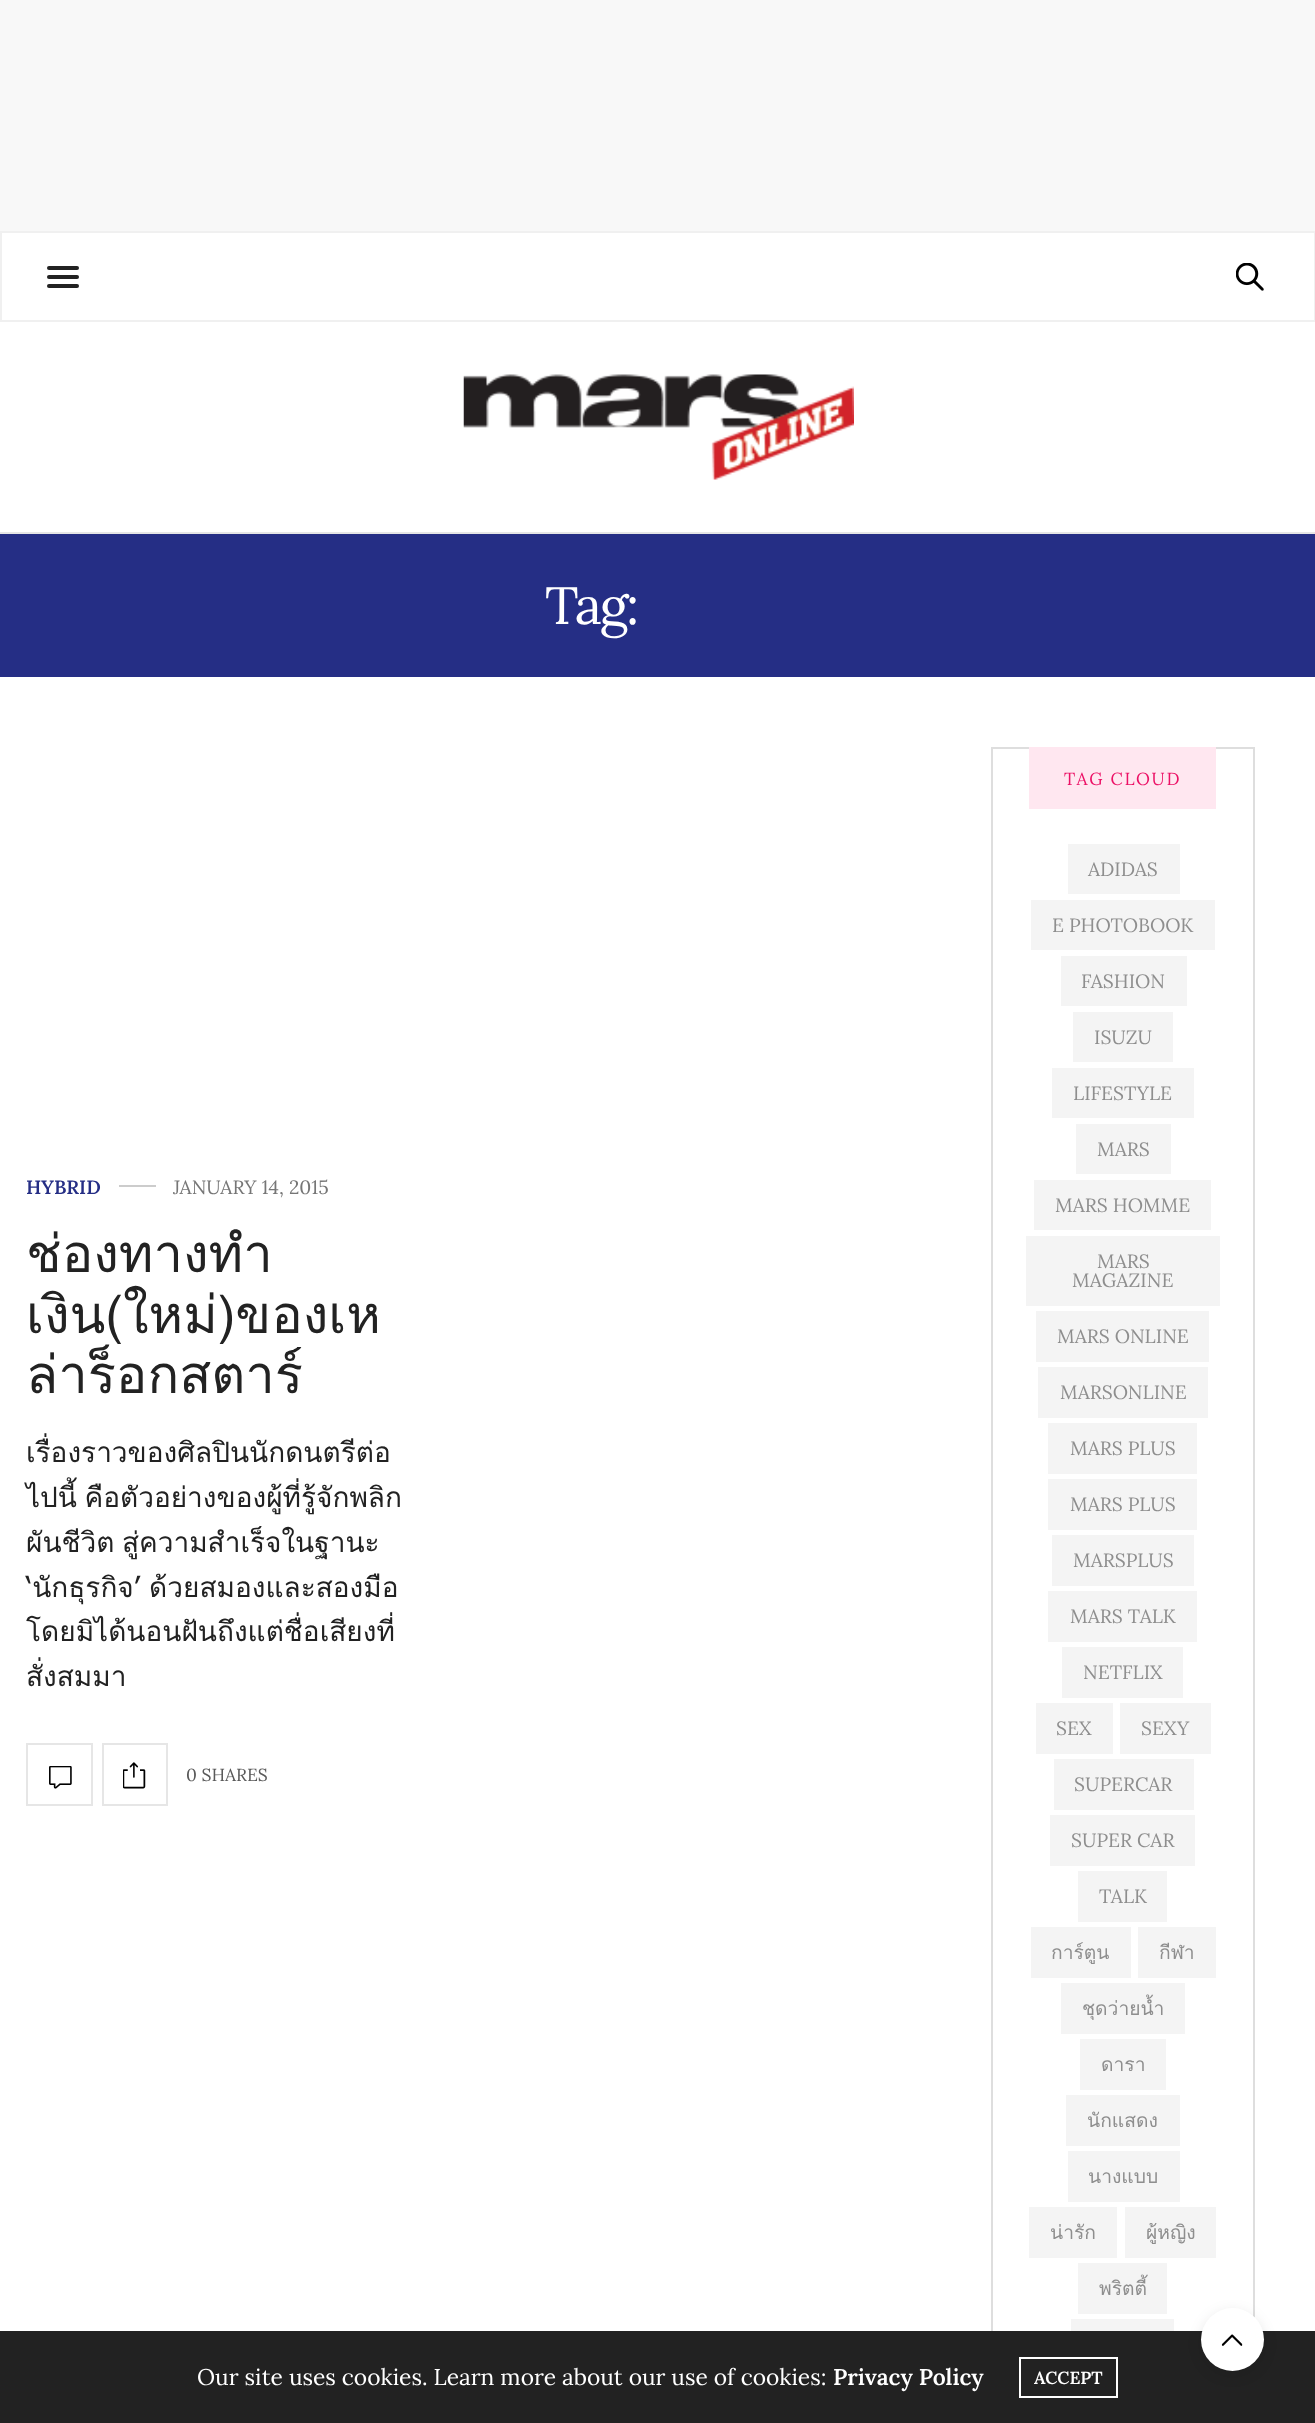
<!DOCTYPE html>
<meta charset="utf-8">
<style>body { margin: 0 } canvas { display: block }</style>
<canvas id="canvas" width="1315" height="2423"></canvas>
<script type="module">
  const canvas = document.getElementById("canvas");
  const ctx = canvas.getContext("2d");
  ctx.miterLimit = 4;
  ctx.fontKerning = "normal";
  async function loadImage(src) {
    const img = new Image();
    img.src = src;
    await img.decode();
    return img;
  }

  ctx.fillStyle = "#ffffff";
  ctx.fillRect(0, 0, 1315, 2423);
  ctx.fillStyle = "#f8f8f8";
  ctx.fillRect(0, 0, 1315, 231);
  ctx.strokeStyle = "#f0f0f0";
  ctx.lineWidth = 2;
  ctx.strokeRect(1, 232, 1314, 89);
  ctx.fillStyle = "#222222";
  ctx.beginPath();
  ctx.roundRect(47, 266, 32, 4, 2);
  ctx.fill();
  ctx.beginPath();
  ctx.roundRect(47, 275, 32, 4, 2);
  ctx.fill();
  ctx.beginPath();
  ctx.roundRect(47, 284, 32, 4, 2);
  ctx.fill();
  ctx.drawImage(await loadImage("img1.png"), 1236, 263, 28, 28);
  ctx.fillStyle = "#e6e6e6";
  ctx.fillRect(0, 532, 1315, 2);
  ctx.drawImage(await loadImage("img2.png"), 463, 374, 391, 106);
  ctx.fillStyle = "#252e85";
  ctx.fillRect(0, 534, 1315, 143);
  ctx.letterSpacing = "-2.5px";
  ctx.font = "52.5px Lora";
  ctx.fillStyle = "#ffffff";
  ctx.fillText("Tag:", 545, 624);
  ctx.letterSpacing = "0px";
  ctx.font = "600 19.25px Lora";
  ctx.fillStyle = "#252e85";
  ctx.fillText("HYBRID", 26, 1194);
  ctx.fillStyle = "#cccccc";
  ctx.fillRect(119, 1185, 37, 2);
  ctx.font = "19.25px Lora";
  ctx.fillStyle = "#767676";
  ctx.fillText("JANUARY 14, 2015", 173, 1194);
  ctx.font = "52.5px Loma";
  ctx.fillStyle = "#222222";
  ctx.fillText("ช่องทางทำ", 26, 1272);
  ctx.fillText("เงิน(ใหม่)ของเห", 26, 1333);
  ctx.fillText("ล่าร็อกสตาร์", 26, 1393);
  ctx.font = "28px Loma";
  ctx.fillText("เรื่องราวของศิลปินนักดนตรีต่อ", 26, 1462);
  ctx.wordSpacing = "-2px";
  ctx.fillText("ไปนี้ คือตัวอย่างของผู้ที่รู้จักพลิก", 26, 1507);
  ctx.fillText("ผันชีวิต สู่ความสำเร็จในฐานะ", 26, 1552);
  ctx.fillText("‘นักธุรกิจ’ ด้วยสมองและสองมือ", 26, 1597);
  ctx.wordSpacing = "0px";
  ctx.fillText("โดยมิได้นอนฝันถึงแต่ชื่อเสียงที่", 26, 1641);
  ctx.fillText("สั่งสมมา", 26, 1686);
  ctx.strokeStyle = "#e6e6e6";
  ctx.strokeRect(27, 1744, 65, 61);
  ctx.drawImage(await loadImage("img3.png"), 49, 1766, 23, 23);
  ctx.strokeRect(103, 1744, 64, 61);
  ctx.drawImage(await loadImage("img4.png"), 123, 1762, 23, 27);
  ctx.font = "17.5px Lora";
  ctx.fillStyle = "#595959";
  ctx.fillText("0 SHARES", 186, 1781);
  ctx.strokeStyle = "#dedede";
  ctx.strokeRect(992, 748, 262, 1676);
  ctx.fillStyle = "#ffe7f0";
  ctx.fillRect(1029, 747, 187, 62);
  ctx.letterSpacing = "1.75px";
  ctx.fillStyle = "#ec1166";
  ctx.fillText("TAG CLOUD", 1064, 785);
  ctx.fillStyle = "#f4f4f4";
  ctx.fillRect(1068, 844, 112, 50);
  ctx.letterSpacing = "0px";
  ctx.font = "19.25px Lora";
  ctx.fillStyle = "#8e8e8e";
  ctx.fillText("ADIDAS", 1088, 876);
  ctx.fillStyle = "#f4f4f4";
  ctx.fillRect(1031, 900, 184, 50);
  ctx.fillStyle = "#8e8e8e";
  ctx.fillText("E PHOTOBOOK", 1052, 932);
  ctx.fillStyle = "#f4f4f4";
  ctx.fillRect(1061, 956, 126, 50);
  ctx.fillStyle = "#8e8e8e";
  ctx.fillText("FASHION", 1081, 988);
  ctx.fillStyle = "#f4f4f4";
  ctx.fillRect(1073, 1012, 100, 50);
  ctx.fillStyle = "#8e8e8e";
  ctx.fillText("ISUZU", 1094, 1044);
  ctx.fillStyle = "#f4f4f4";
  ctx.fillRect(1052, 1068, 142, 50);
  ctx.fillStyle = "#8e8e8e";
  ctx.fillText("LIFESTYLE", 1073, 1100);
  ctx.fillStyle = "#f4f4f4";
  ctx.fillRect(1076, 1124, 95, 50);
  ctx.fillStyle = "#8e8e8e";
  ctx.fillText("MARS", 1097, 1156);
  ctx.fillStyle = "#f4f4f4";
  ctx.fillRect(1034, 1180, 177, 50);
  ctx.fillStyle = "#8e8e8e";
  ctx.fillText("MARS HOMME", 1055, 1212);
  ctx.fillStyle = "#f4f4f4";
  ctx.fillRect(1026, 1236, 194, 70);
  ctx.fillStyle = "#8e8e8e";
  ctx.fillText("MARS", 1097, 1268);
  ctx.fillText("MAGAZINE", 1072, 1287);
  ctx.fillStyle = "#f4f4f4";
  ctx.fillRect(1036, 1311, 173, 51);
  ctx.fillStyle = "#8e8e8e";
  ctx.fillText("MARS ONLINE", 1057, 1343);
  ctx.fillStyle = "#f4f4f4";
  ctx.fillRect(1038, 1367, 170, 51);
  ctx.fillStyle = "#8e8e8e";
  ctx.fillText("MARSONLINE", 1060, 1399);
  ctx.fillStyle = "#f4f4f4";
  ctx.fillRect(1048, 1423, 149, 51);
  ctx.fillStyle = "#8e8e8e";
  ctx.fillText("MARS PLUS", 1070, 1455);
  ctx.fillStyle = "#f4f4f4";
  ctx.fillRect(1048, 1479, 149, 51);
  ctx.fillStyle = "#8e8e8e";
  ctx.fillText("MARS PLUS", 1070, 1511);
  ctx.fillStyle = "#f4f4f4";
  ctx.fillRect(1052, 1535, 142, 51);
  ctx.fillStyle = "#8e8e8e";
  ctx.fillText("MARSPLUS", 1073, 1567);
  ctx.fillStyle = "#f4f4f4";
  ctx.fillRect(1048, 1591, 149, 51);
  ctx.fillStyle = "#8e8e8e";
  ctx.fillText("MARS TALK", 1070, 1623);
  ctx.fillStyle = "#f4f4f4";
  ctx.fillRect(1062, 1647, 121, 51);
  ctx.fillStyle = "#8e8e8e";
  ctx.fillText("NETFLIX", 1083, 1679);
  ctx.fillStyle = "#f4f4f4";
  ctx.fillRect(1036, 1703, 77, 51);
  ctx.fillStyle = "#8e8e8e";
  ctx.fillText("SEX", 1056, 1735);
  ctx.fillStyle = "#f4f4f4";
  ctx.fillRect(1120, 1703, 91, 51);
  ctx.fillStyle = "#8e8e8e";
  ctx.fillText("SEXY", 1141, 1735);
  ctx.fillStyle = "#f4f4f4";
  ctx.fillRect(1054, 1759, 140, 51);
  ctx.fillStyle = "#8e8e8e";
  ctx.fillText("SUPERCAR", 1074, 1791);
  ctx.fillStyle = "#f4f4f4";
  ctx.fillRect(1050, 1815, 145, 51);
  ctx.fillStyle = "#8e8e8e";
  ctx.fillText("SUPER CAR", 1071, 1847);
  ctx.fillStyle = "#f4f4f4";
  ctx.fillRect(1078, 1871, 89, 51);
  ctx.fillStyle = "#8e8e8e";
  ctx.fillText("TALK", 1099, 1903);
  ctx.fillStyle = "#f4f4f4";
  ctx.fillRect(1031, 1927, 100, 51);
  ctx.font = "19.25px Loma";
  ctx.fillStyle = "#8e8e8e";
  ctx.fillText("การ์ตูน", 1051, 1959);
  ctx.fillStyle = "#f4f4f4";
  ctx.fillRect(1138, 1927, 78, 51);
  ctx.fillStyle = "#8e8e8e";
  ctx.fillText("กีฬา", 1159, 1959);
  ctx.fillStyle = "#f4f4f4";
  ctx.fillRect(1061, 1983, 124, 51);
  ctx.fillStyle = "#8e8e8e";
  ctx.fillText("ชุดว่ายน้ำ", 1082, 2015);
  ctx.fillStyle = "#f4f4f4";
  ctx.fillRect(1080, 2039, 86, 51);
  ctx.fillStyle = "#8e8e8e";
  ctx.fillText("ดารา", 1101, 2071);
  ctx.fillStyle = "#f4f4f4";
  ctx.fillRect(1066, 2095, 114, 51);
  ctx.fillStyle = "#8e8e8e";
  ctx.fillText("นักแสดง", 1087, 2127);
  ctx.fillStyle = "#f4f4f4";
  ctx.fillRect(1068, 2151, 112, 51);
  ctx.fillStyle = "#8e8e8e";
  ctx.fillText("นางแบบ", 1088, 2183);
  ctx.fillStyle = "#f4f4f4";
  ctx.fillRect(1029, 2207, 88, 51);
  ctx.fillStyle = "#8e8e8e";
  ctx.fillText("น่ารัก", 1050, 2239);
  ctx.fillStyle = "#f4f4f4";
  ctx.fillRect(1125, 2207, 91, 51);
  ctx.fillStyle = "#8e8e8e";
  ctx.fillText("ผู้หญิง", 1146, 2239);
  ctx.fillStyle = "#f4f4f4";
  ctx.fillRect(1078, 2263, 89, 51);
  ctx.fillStyle = "#8e8e8e";
  ctx.fillText("พริตตี้", 1099, 2295);
  ctx.fillStyle = "#f4f4f4";
  ctx.fillRect(1071, 2319, 103, 12);
  ctx.fillStyle = "#222222";
  ctx.fillRect(0, 2331, 1315, 92);
  ctx.font = "22.75px Lora";
  ctx.fillStyle = "#ffffff";
  ctx.fillText("Our site uses cookies. Learn more about our use of cookies:", 197, 2385);
  ctx.font = "600 22.75px Lora";
  ctx.fillText("Privacy Policy", 833, 2385);
  ctx.strokeStyle = "#ffffff";
  ctx.strokeRect(1020, 2358, 97, 39);
  ctx.font = "600 17.5px Lora";
  ctx.fillText("ACCEPT", 1034, 2384);
  ctx.fillStyle = "rgba(0, 0, 0, 0.1)";
  ctx.filter = "blur(7px)";
  ctx.beginPath();
  ctx.roundRect(1201, 2312, 63, 63, 31.5);
  ctx.fill();
  ctx.filter = "none";
  ctx.fillStyle = "#ffffff";
  ctx.beginPath();
  ctx.arc(1232.5, 2339.5, 31.5, 0, Math.PI * 2);
  ctx.fill();
  ctx.drawImage(await loadImage("img5.png"), 1221, 2334, 22, 12);
</script>
